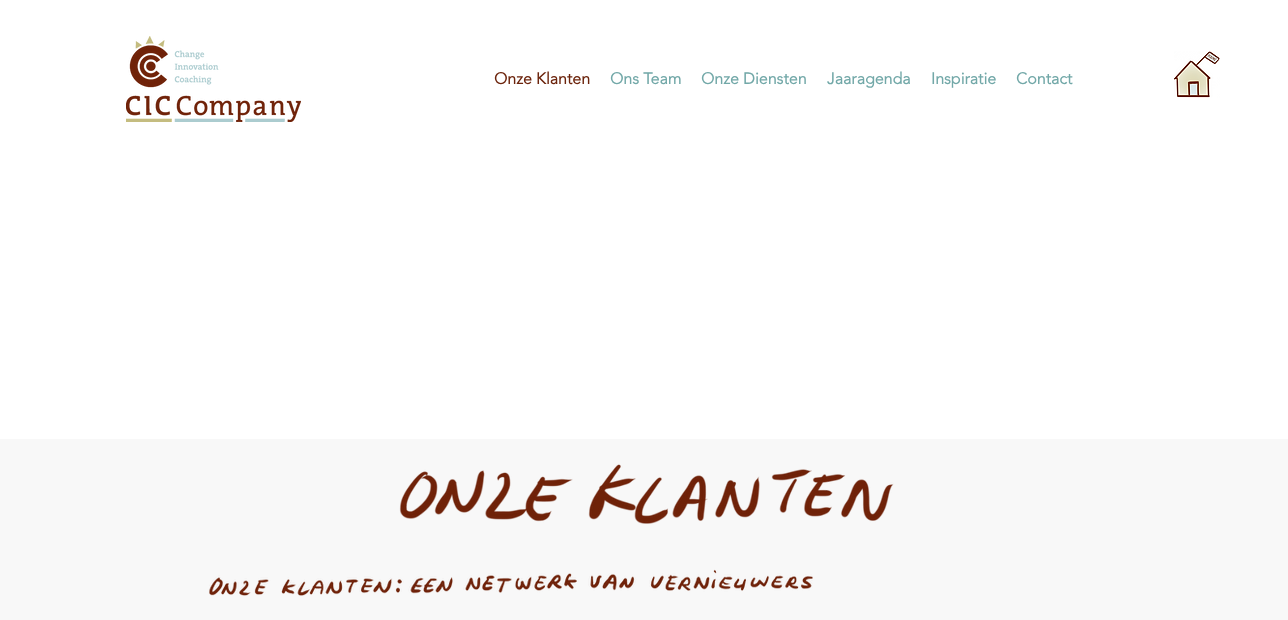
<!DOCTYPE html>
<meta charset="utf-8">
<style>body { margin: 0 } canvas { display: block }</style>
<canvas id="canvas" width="1288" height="620"></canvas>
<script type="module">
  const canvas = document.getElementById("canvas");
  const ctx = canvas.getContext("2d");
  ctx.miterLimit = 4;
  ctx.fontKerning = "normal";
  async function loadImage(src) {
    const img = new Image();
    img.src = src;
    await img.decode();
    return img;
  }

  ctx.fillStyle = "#ffffff";
  ctx.fillRect(0, 0, 1288, 620);
  ctx.drawImage(await loadImage("img1.png"), 126, 36, 175, 86);
  ctx.font = "bold 16px 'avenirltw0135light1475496'";
  ctx.fillStyle = "#6c240c";
  ctx.fillText("Onze Klanten", 494, 84);
  ctx.fillStyle = "#72a8a8";
  ctx.fillText("Ons Team", 610, 84);
  ctx.fillText("Onze Diensten", 701, 84);
  ctx.fillText("Jaaragenda", 827, 84);
  ctx.fillText("Inspiratie", 931, 84);
  ctx.fillText("Contact", 1016, 84);
  ctx.drawImage(await loadImage("img2.png"), 1174, 51, 46, 47);
  ctx.fillStyle = "#f8f8f8";
  ctx.fillRect(0, 439, 1288, 181);
  ctx.drawImage(await loadImage("img3.png"), 399, 464, 495, 60);
  ctx.drawImage(await loadImage("img4.png"), 209, 569, 604, 27);
</script>
